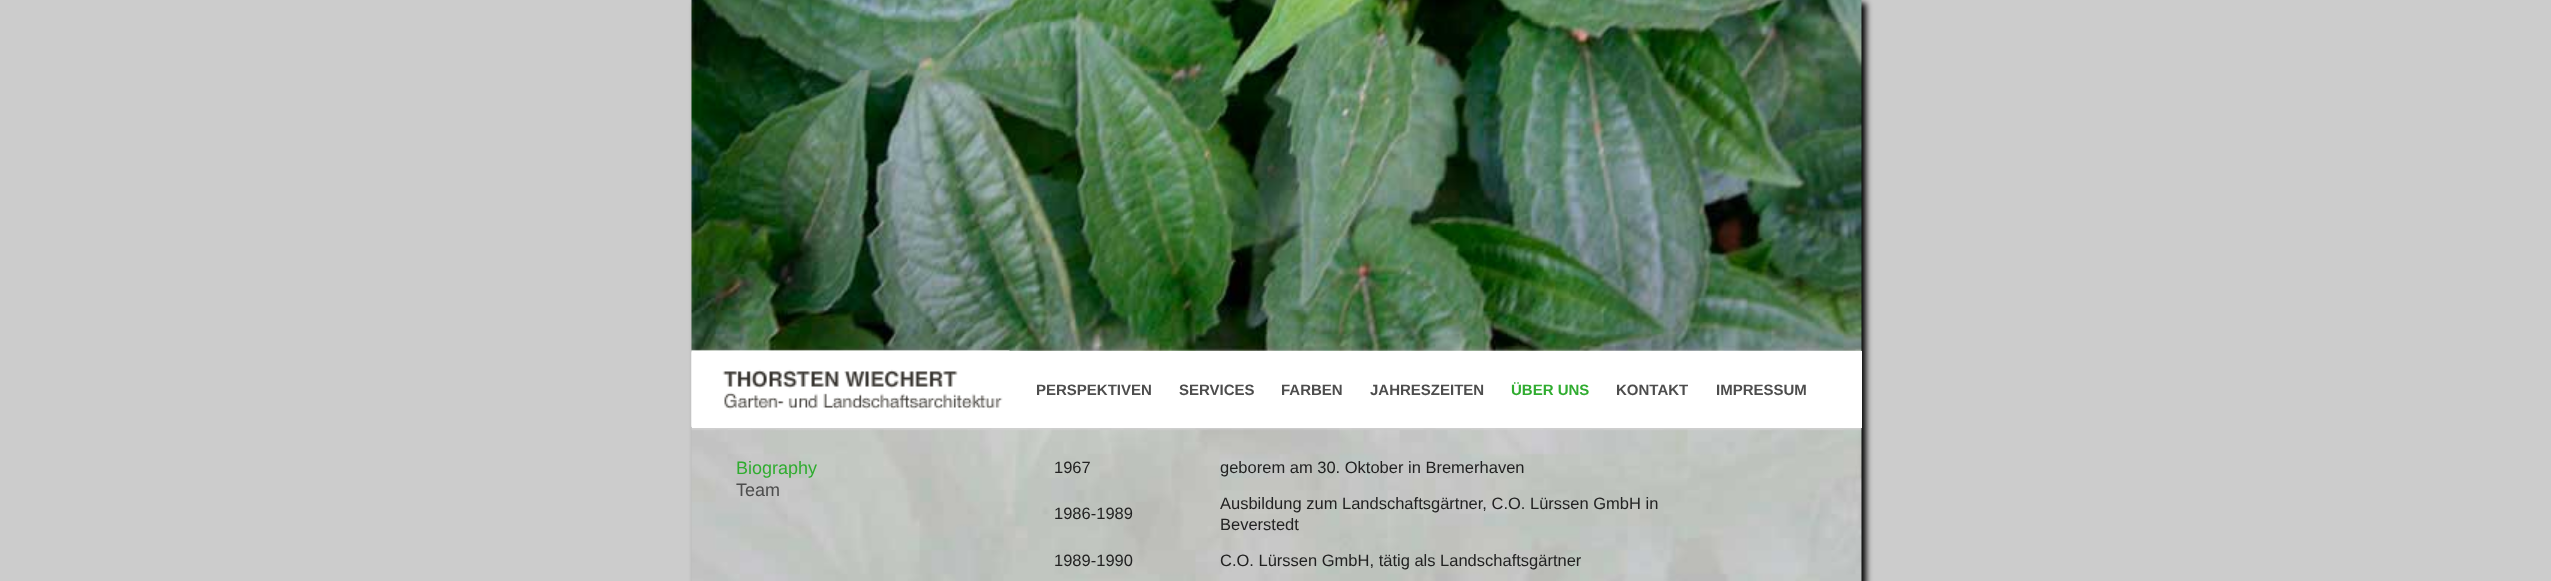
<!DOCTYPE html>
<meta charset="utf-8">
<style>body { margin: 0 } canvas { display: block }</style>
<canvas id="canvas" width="2551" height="581"></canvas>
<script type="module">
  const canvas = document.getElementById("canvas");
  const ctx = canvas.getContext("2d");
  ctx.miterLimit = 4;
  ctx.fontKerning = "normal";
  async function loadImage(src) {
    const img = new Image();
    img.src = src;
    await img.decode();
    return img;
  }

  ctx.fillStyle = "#cccccc";
  ctx.fillRect(0, 0, 2551, 581);
  ctx.fillStyle = "#000000";
  ctx.filter = "blur(3px)";
  ctx.beginPath();
  ctx.rect(696, 3, 1170, 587);
  ctx.fill();
  ctx.filter = "none";
  ctx.drawImage(await loadImage("img1.png"), 691, 0, 1171, 581);
  ctx.fillStyle = "#ffffff";
  ctx.fillRect(692, 351, 1170, 77);
  ctx.drawImage(await loadImage("img2.png"), 691, 350, 319, 77);
  ctx.font = "bold 15px Liberation Sans";
  ctx.fillStyle = "#4d4d4d";
  ctx.fillText("PERSPEKTIVEN", 1036, 395);
  ctx.fillText("SERVICES", 1179, 395);
  ctx.fillText("FARBEN", 1281, 395);
  ctx.fillText("JAHRESZEITEN", 1370, 395);
  ctx.fillStyle = "#30ac30";
  ctx.fillText("ÜBER UNS", 1511, 395);
  ctx.fillStyle = "#4d4d4d";
  ctx.fillText("KONTAKT", 1616, 395);
  ctx.fillText("IMPRESSUM", 1716, 395);
  ctx.font = "18px Liberation Sans";
  ctx.fillStyle = "#30ac30";
  ctx.fillText("Biography", 736, 474);
  ctx.fillStyle = "#4d4d4d";
  ctx.fillText("Team", 736, 496);
  ctx.font = "16.5px Liberation Sans";
  ctx.fillStyle = "#222222";
  ctx.fillText("1967", 1054, 473);
  ctx.fillText("geborem am 30. Oktober in Bremerhaven", 1220, 473);
  ctx.fillText("1986-1989", 1054, 519);
  ctx.fillText("Ausbildung zum Landschaftsgärtner, C.O. Lürssen GmbH in", 1220, 509);
  ctx.fillText("Beverstedt", 1220, 530);
  ctx.fillText("1989-1990", 1054, 566);
  ctx.fillText("C.O. Lürssen GmbH, tätig als Landschaftsgärtner", 1220, 566);
</script>
